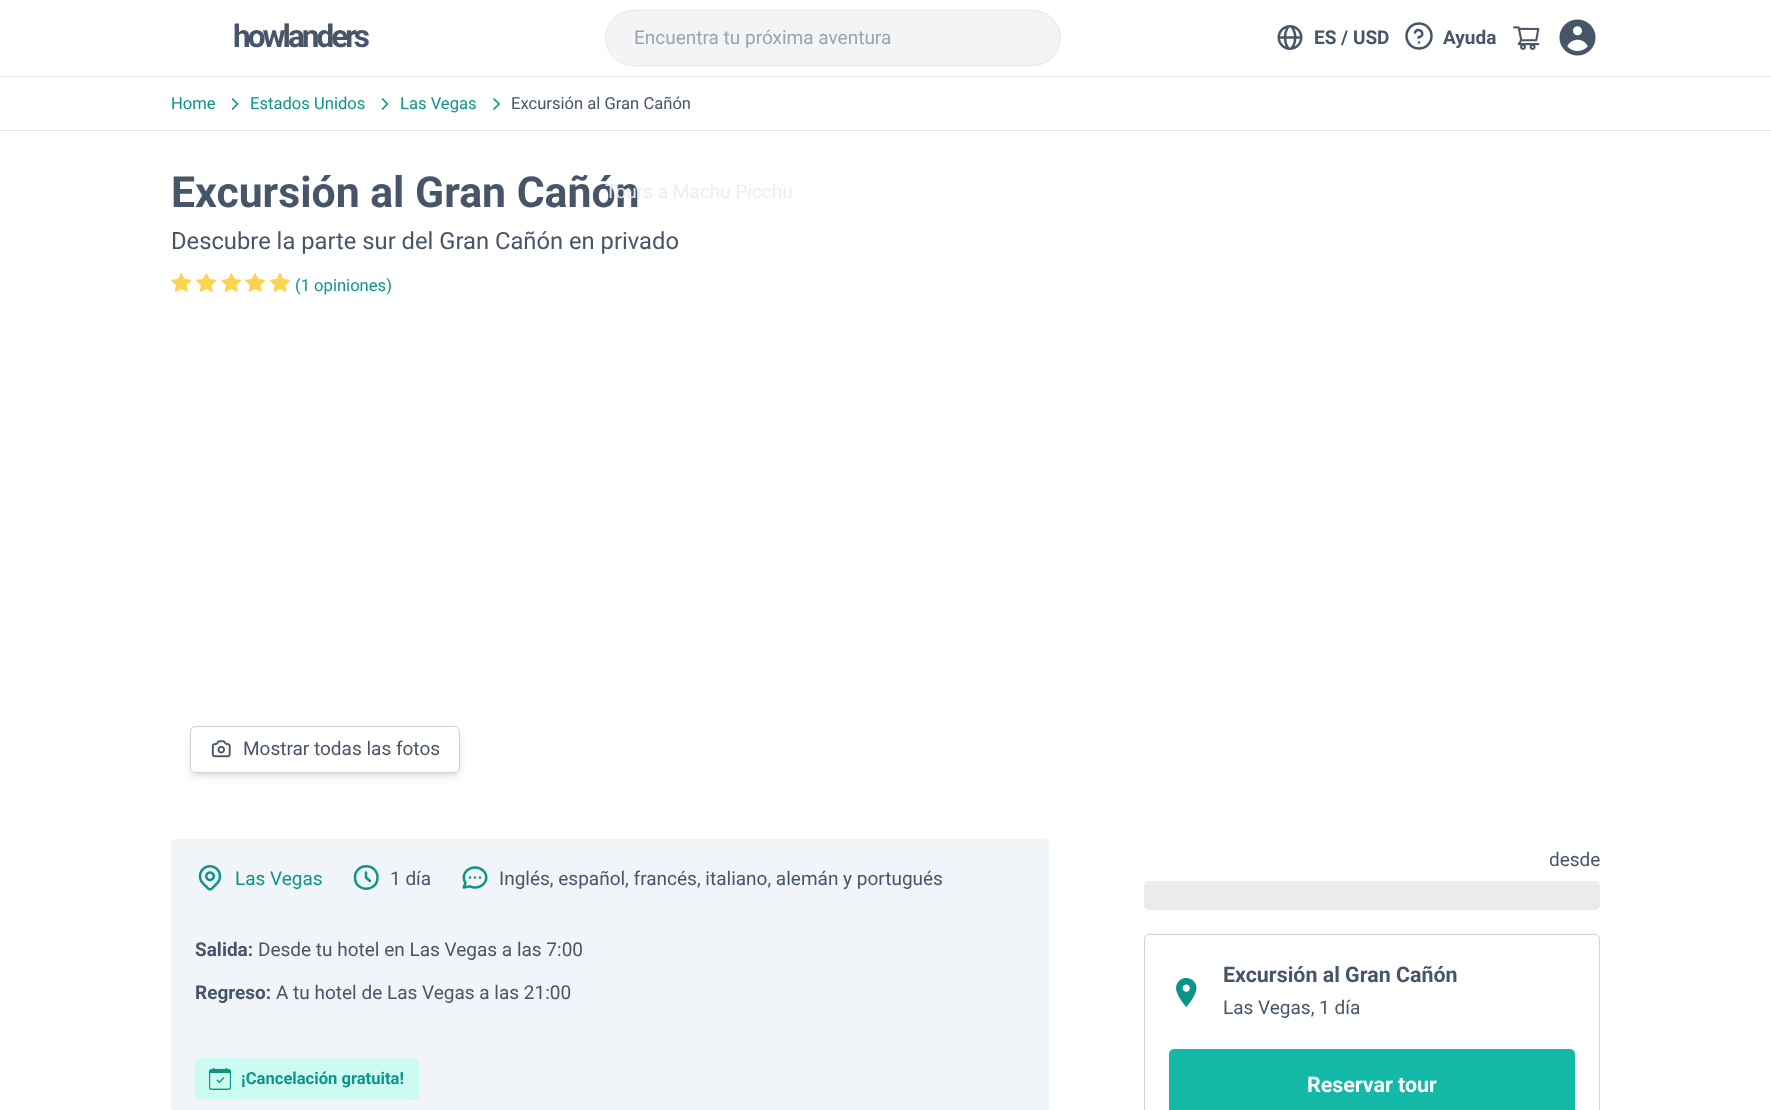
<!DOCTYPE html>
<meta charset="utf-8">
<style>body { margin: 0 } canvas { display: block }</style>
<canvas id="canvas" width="1771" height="1110"></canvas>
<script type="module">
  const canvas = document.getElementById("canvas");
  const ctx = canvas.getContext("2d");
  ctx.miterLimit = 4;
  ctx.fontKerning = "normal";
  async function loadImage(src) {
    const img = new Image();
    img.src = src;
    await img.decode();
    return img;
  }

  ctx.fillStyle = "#ffffff";
  ctx.fillRect(0, 0, 1771, 1110);
  ctx.fillStyle = "#e5e7eb";
  ctx.fillRect(0, 76, 1771, 1);
  ctx.letterSpacing = "-3px";
  ctx.font = "bold 31.5px Roboto";
  ctx.fillStyle = "#475569";
  ctx.fillText("howlanders", 233, 47);
  ctx.fillStyle = "#f3f4f6";
  ctx.beginPath();
  ctx.roundRect(605.5, 10.5, 455, 55, 27.5);
  ctx.fill();
  ctx.strokeStyle = "#e5e7eb";
  ctx.stroke();
  ctx.letterSpacing = "0px";
  ctx.font = "19px Roboto";
  ctx.fillStyle = "#9ca3af";
  ctx.fillText("Encuentra tu próxima aventura", 634, 44);
  ctx.font = "bold 42.75px Roboto";
  ctx.fillStyle = "#475569";
  ctx.fillText("Excursión al Gran Cañón", 171, 207);
  ctx.font = "19px Roboto";
  ctx.fillStyle = "#ebedef";
  ctx.fillText("Tours a Machu Picchu", 605, 198);
  ctx.drawImage(await loadImage("img1.png"), 1277, 25, 26, 25);
  ctx.font = "bold 19px Roboto";
  ctx.fillStyle = "#475569";
  ctx.fillText("ES / USD", 1314, 44);
  ctx.beginPath();
  ctx.arc(1419, 36, 12.5, 0, Math.PI * 2);
  ctx.strokeStyle = "#475569";
  ctx.lineWidth = 2.5;
  ctx.stroke();
  ctx.beginPath();
  ctx.moveTo(1415, 32.5);
  ctx.bezierCurveTo(1417.5, 25.5, 1428, 34.5, 1418.5, 37.5);
  ctx.moveTo(1419, 42.5);
  ctx.lineTo(1419, 42.5);
  ctx.lineCap = "round";
  ctx.lineJoin = "round";
  ctx.stroke();
  ctx.fillText("Ayuda", 1443, 44);
  ctx.drawImage(await loadImage("img2.png"), 1513, 26, 27, 24);
  ctx.drawImage(await loadImage("img3.png"), 1559, 19, 37, 37);
  ctx.fillStyle = "#e5e7eb";
  ctx.fillRect(0, 130, 1771, 1);
  ctx.font = "16.6px Roboto";
  ctx.fillStyle = "#0d9488";
  ctx.fillText("Home", 171, 109);
  ctx.beginPath();
  ctx.moveTo(232.5, 109);
  ctx.lineTo(237.5, 104);
  ctx.lineTo(232.5, 99);
  ctx.strokeStyle = "#0d9488";
  ctx.lineWidth = 1.7;
  ctx.stroke();
  ctx.fillText("Estados Unidos", 250, 109);
  ctx.beginPath();
  ctx.moveTo(382.5, 109);
  ctx.lineTo(387.5, 104);
  ctx.lineTo(382.5, 99);
  ctx.stroke();
  ctx.fillText("Las Vegas", 400, 109);
  ctx.beginPath();
  ctx.moveTo(494, 109);
  ctx.lineTo(499, 104);
  ctx.lineTo(494, 99);
  ctx.stroke();
  ctx.fillStyle = "#475569";
  ctx.fillText("Excursión al Gran Cañón", 511, 109);
  ctx.font = "23.75px Roboto";
  ctx.fillText("Descubre la parte sur del Gran Cañón en privado", 171, 249);
  ctx.drawImage(await loadImage("img4.png"), 171, 273, 20, 19);
  ctx.drawImage(await loadImage("img4.png"), 196, 273, 20, 19);
  ctx.drawImage(await loadImage("img4.png"), 221, 273, 20, 19);
  ctx.drawImage(await loadImage("img5.png"), 245, 273, 20, 19);
  ctx.drawImage(await loadImage("img5.png"), 270, 273, 20, 19);
  ctx.font = "16.6px Roboto";
  ctx.fillStyle = "#0d9488";
  ctx.fillText("(1 opiniones)", 295, 291);
  ctx.fillStyle = "rgba(0, 0, 0, 0.1)";
  ctx.filter = "blur(2.5px)";
  ctx.beginPath();
  ctx.roundRect(193, 731, 265, 42, 2.5);
  ctx.fill();
  ctx.filter = "none";
  ctx.filter = "blur(4px)";
  ctx.beginPath();
  ctx.roundRect(191, 733, 268, 43, 4);
  ctx.fill();
  ctx.filter = "none";
  ctx.fillStyle = "#ffffff";
  ctx.beginPath();
  ctx.roundRect(190.5, 726.5, 269, 46, 4.5);
  ctx.fill();
  ctx.strokeStyle = "#cbd5e1";
  ctx.lineWidth = 1;
  ctx.lineJoin = "miter";
  ctx.stroke();
  ctx.drawImage(await loadImage("img6.png"), 211, 740, 20, 18);
  ctx.font = "19px Roboto";
  ctx.fillStyle = "#475569";
  ctx.fillText("Mostrar todas las fotos", 243, 755);
  ctx.fillStyle = "#f1f5f9";
  ctx.beginPath();
  ctx.roundRect(171, 839, 878, 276, 5);
  ctx.fill();
  ctx.drawImage(await loadImage("img7.png"), 198, 865, 24, 26);
  ctx.fillStyle = "#0d9488";
  ctx.fillText("Las Vegas", 235, 885);
  ctx.beginPath();
  ctx.moveTo(366, 872.5);
  ctx.lineTo(366, 877.5);
  ctx.lineTo(370, 881);
  ctx.moveTo(377.5, 877.5);
  ctx.bezierCurveTo(377.5, 892.5, 355, 892.5, 355, 877.5);
  ctx.bezierCurveTo(355, 862.5, 377.5, 862.5, 377.5, 877.5);
  ctx.closePath();
  ctx.strokeStyle = "#0d9488";
  ctx.lineWidth = 2.5;
  ctx.lineJoin = "round";
  ctx.stroke();
  ctx.fillStyle = "#475569";
  ctx.fillText("1 día", 390, 885);
  ctx.drawImage(await loadImage("img8.png"), 462, 866, 26, 23);
  ctx.fillText("Inglés, español, francés, italiano, alemán y portugués", 499, 885);
  ctx.font = "bold 19px Roboto";
  ctx.fillText("Salida:", 195, 956);
  ctx.font = "19px Roboto";
  ctx.fillText("Desde tu hotel en Las Vegas a las 7:00", 258, 956);
  ctx.font = "bold 19px Roboto";
  ctx.fillText("Regreso:", 195, 999);
  ctx.font = "19px Roboto";
  ctx.fillText("A tu hotel de Las Vegas a las 21:00", 276, 999);
  ctx.fillStyle = "#ccfbf1";
  ctx.beginPath();
  ctx.roundRect(195, 1058, 224, 42, 5);
  ctx.fill();
  ctx.drawImage(await loadImage("img9.png"), 209, 1068, 22, 22);
  ctx.font = "bold 16.6px Roboto";
  ctx.fillStyle = "#0d9488";
  ctx.fillText("¡Cancelación gratuita!", 241, 1084);
  ctx.font = "19px Roboto";
  ctx.fillStyle = "#475569";
  ctx.fillText("desde", 1549, 866);
  ctx.fillStyle = "#ebebeb";
  ctx.beginPath();
  ctx.roundRect(1144, 881, 456, 29, 5);
  ctx.fill();
  ctx.beginPath();
  ctx.roundRect(1144.5, 934.5, 455, 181, 4.5);
  ctx.strokeStyle = "#cbd5e1";
  ctx.lineWidth = 1;
  ctx.lineJoin = "miter";
  ctx.stroke();
  ctx.drawImage(await loadImage("img10.png"), 1176, 977, 21, 30);
  ctx.font = "bold 21.4px Roboto";
  ctx.fillStyle = "#475569";
  ctx.fillText("Excursión al Gran Cañón", 1223, 982);
  ctx.font = "19px Roboto";
  ctx.fillText("Las Vegas, 1 día", 1223, 1014);
  ctx.fillStyle = "#14b8a6";
  ctx.beginPath();
  ctx.roundRect(1169, 1049, 406, 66, 5);
  ctx.fill();
  ctx.font = "bold 21.4px Roboto";
  ctx.fillStyle = "#ffffff";
  ctx.fillText("Reservar tour", 1307, 1092);
</script>
